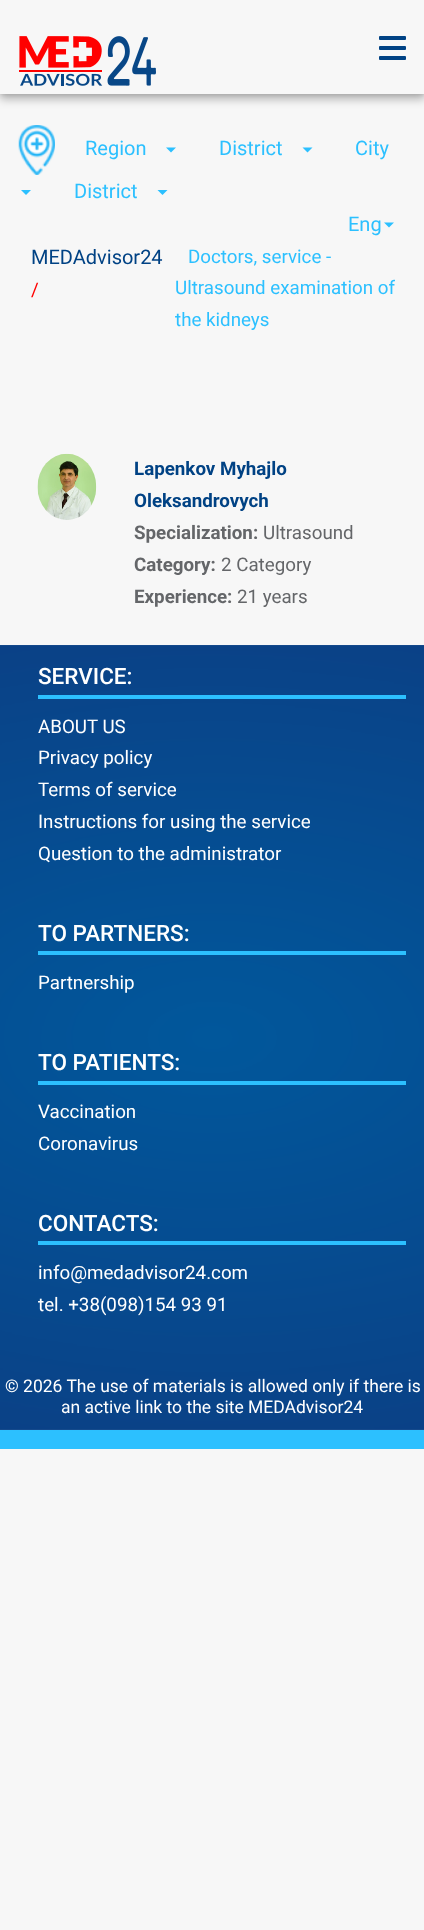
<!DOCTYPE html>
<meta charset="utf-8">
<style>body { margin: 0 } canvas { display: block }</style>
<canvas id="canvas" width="424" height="1930"></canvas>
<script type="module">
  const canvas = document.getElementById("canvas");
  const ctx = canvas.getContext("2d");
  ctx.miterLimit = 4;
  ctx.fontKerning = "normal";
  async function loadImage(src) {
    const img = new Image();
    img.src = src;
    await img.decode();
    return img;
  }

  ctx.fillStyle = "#f7f7f7";
  ctx.fillRect(0, 0, 424, 1930);
  ctx.save();
  ctx.beginPath();
  ctx.moveTo(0, 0);
  ctx.lineTo(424, 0);
  ctx.lineTo(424, 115);
  ctx.lineTo(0, 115);
  ctx.closePath();
  ctx.moveTo(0, 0);
  ctx.lineTo(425, 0);
  ctx.lineTo(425, 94);
  ctx.lineTo(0, 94);
  ctx.closePath();
  ctx.clip("evenodd");
  ctx.fillStyle = "rgba(0, 0, 0, 0.28)";
  ctx.filter = "blur(5px)";
  ctx.beginPath();
  ctx.rect(0, 5, 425, 94);
  ctx.fill();
  ctx.filter = "none";
  ctx.restore();
  ctx.save();
  ctx.beginPath();
  ctx.moveTo(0, 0);
  ctx.lineTo(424, 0);
  ctx.lineTo(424, 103);
  ctx.lineTo(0, 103);
  ctx.closePath();
  ctx.moveTo(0, 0);
  ctx.lineTo(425, 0);
  ctx.lineTo(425, 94);
  ctx.lineTo(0, 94);
  ctx.closePath();
  ctx.clip("evenodd");
  ctx.fillStyle = "rgba(0, 0, 0, 0.14)";
  ctx.filter = "blur(2.5px)";
  ctx.beginPath();
  ctx.rect(0, 0, 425, 94);
  ctx.fill();
  ctx.filter = "none";
  ctx.restore();
  ctx.drawImage(await loadImage("img1.png"), 19, 36, 137, 50);
  ctx.fillStyle = "#004284";
  ctx.beginPath();
  ctx.roundRect(379, 36, 27, 4, 1);
  ctx.fill();
  ctx.beginPath();
  ctx.roundRect(379, 46, 27, 4, 1);
  ctx.fill();
  ctx.beginPath();
  ctx.roundRect(379, 56, 27, 4, 1);
  ctx.fill();
  ctx.drawImage(await loadImage("img2.png"), 18, 125, 37, 50);
  ctx.font = "20px Roboto";
  ctx.fillStyle = "#2cc0ff";
  ctx.fillText("Region", 85, 155);
  ctx.beginPath();
  ctx.moveTo(166, 147.5);
  ctx.lineTo(176, 147.5);
  ctx.lineTo(171, 152.5);
  ctx.closePath();
  ctx.fill();
  ctx.fillText("District", 219, 155);
  ctx.beginPath();
  ctx.moveTo(302.5, 147.5);
  ctx.lineTo(312.5, 147.5);
  ctx.lineTo(307.5, 152.5);
  ctx.closePath();
  ctx.fill();
  ctx.fillText("City", 355, 155);
  ctx.beginPath();
  ctx.moveTo(21, 190);
  ctx.lineTo(31, 190);
  ctx.lineTo(26, 195);
  ctx.closePath();
  ctx.fill();
  ctx.fillText("District", 74, 198);
  ctx.beginPath();
  ctx.moveTo(157.5, 190);
  ctx.lineTo(167.5, 190);
  ctx.lineTo(162.5, 195);
  ctx.closePath();
  ctx.fill();
  ctx.fillText("Eng", 348, 231);
  ctx.beginPath();
  ctx.moveTo(384, 222.5);
  ctx.lineTo(394, 222.5);
  ctx.lineTo(389, 227.5);
  ctx.closePath();
  ctx.fill();
  ctx.fillStyle = "#004284";
  ctx.fillText("MEDAdvisor24", 31, 264);
  ctx.font = "18.75px Roboto";
  ctx.fillStyle = "#ff0000";
  ctx.fillText("/", 31, 296);
  ctx.fillStyle = "#2cc0ff";
  ctx.fillText("Doctors, service -", 188, 263);
  ctx.fillText("Ultrasound examination of", 175, 294);
  ctx.fillText("the kidneys", 175, 326);
  ctx.drawImage(await loadImage("img3.png"), 37, 453, 60, 67);
  ctx.font = "bold 18.75px Roboto";
  ctx.fillStyle = "#004284";
  ctx.fillText("Lapenkov Myhajlo", 134, 475);
  ctx.fillText("Oleksandrovych", 134, 507);
  ctx.fillStyle = "#646669";
  ctx.fillText("Specialization:", 134, 539);
  ctx.font = "18.75px Roboto";
  ctx.fillText("Ultrasound", 263, 539);
  ctx.font = "bold 18.75px Roboto";
  ctx.fillText("Category:", 134, 571);
  ctx.font = "18.75px Roboto";
  ctx.fillText("2 Category", 221, 571);
  ctx.font = "bold 18.75px Roboto";
  ctx.fillText("Experience:", 134, 603);
  ctx.font = "18.75px Roboto";
  ctx.fillText("21 years", 237, 603);
  ctx.drawImage(await loadImage("img4.png"), 0, 645, 424, 785);
  ctx.fillStyle = "#2cc0ff";
  ctx.fillRect(0, 1430, 424, 19);
  ctx.fillRect(38, 695, 368, 4);
  ctx.font = "500 22.5px Roboto";
  ctx.fillStyle = "#ffffff";
  ctx.fillText("SERVICE:", 38, 684);
  ctx.font = "18.75px Roboto";
  ctx.fillText("ABOUT US", 38, 733);
  ctx.fillText("Privacy policy", 38, 764);
  ctx.fillText("Terms of service", 38, 796);
  ctx.fillText("Instructions for using the service", 38, 828);
  ctx.fillText("Question to the administrator", 38, 860);
  ctx.fillStyle = "#2cc0ff";
  ctx.fillRect(38, 951, 368, 4);
  ctx.font = "500 22.5px Roboto";
  ctx.fillStyle = "#ffffff";
  ctx.fillText("TO PARTNERS:", 38, 941);
  ctx.font = "18.75px Roboto";
  ctx.fillText("Partnership", 38, 989);
  ctx.fillStyle = "#2cc0ff";
  ctx.fillRect(38, 1081, 368, 4);
  ctx.font = "500 22.5px Roboto";
  ctx.fillStyle = "#ffffff";
  ctx.fillText("TO PATIENTS:", 38, 1070);
  ctx.font = "18.75px Roboto";
  ctx.fillText("Vaccination", 38, 1118);
  ctx.fillText("Coronavirus", 38, 1150);
  ctx.fillStyle = "#2cc0ff";
  ctx.fillRect(38, 1241, 368, 4);
  ctx.font = "500 22.5px Roboto";
  ctx.fillStyle = "#ffffff";
  ctx.fillText("CONTACTS:", 38, 1231);
  ctx.font = "18.75px Roboto";
  ctx.fillText("info@medadvisor24.com", 38, 1279);
  ctx.fillText("tel. +38(098)154 93 91", 38, 1311);
  ctx.font = "17.5px Roboto";
  ctx.fillText("© 2026 The use of materials is allowed only if there is", 5, 1392);
  ctx.fillText("an active link to the site MEDAdvisor24", 61, 1413);
</script>
